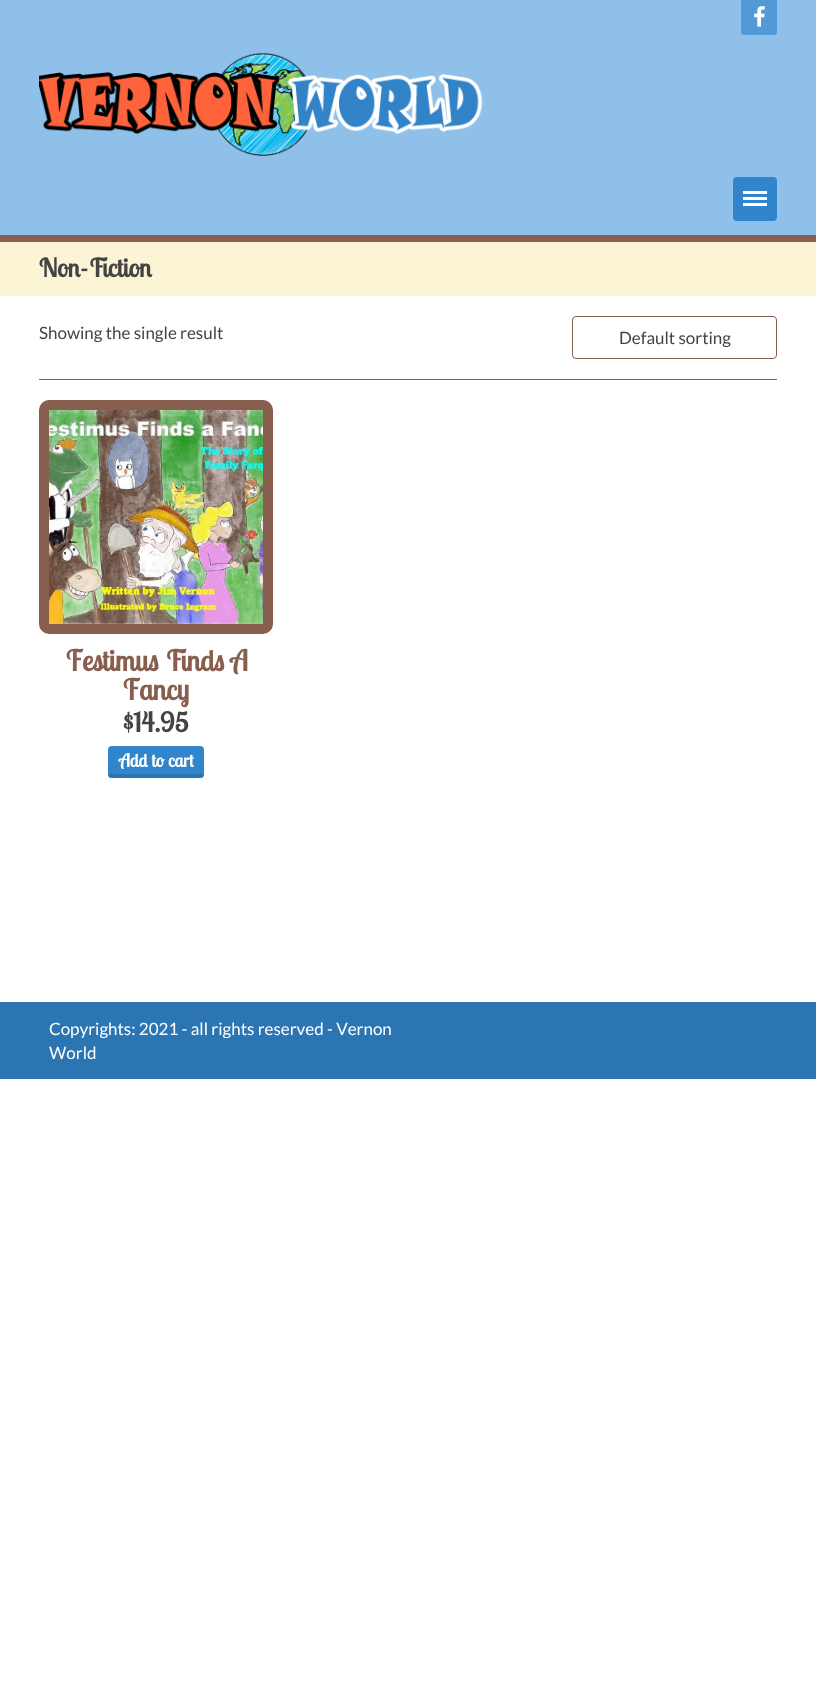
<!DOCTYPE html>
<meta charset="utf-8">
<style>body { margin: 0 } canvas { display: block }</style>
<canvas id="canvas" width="816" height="1700"></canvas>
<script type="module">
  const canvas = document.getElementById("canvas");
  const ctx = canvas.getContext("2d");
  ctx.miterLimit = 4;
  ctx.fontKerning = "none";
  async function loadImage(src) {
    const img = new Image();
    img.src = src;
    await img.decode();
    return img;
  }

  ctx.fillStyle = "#ffffff";
  ctx.fillRect(0, 0, 816, 1700);
  ctx.fillStyle = "#8fc0ea";
  ctx.fillRect(0, 0, 816, 235);
  ctx.fillStyle = "#529ad6";
  ctx.beginPath();
  ctx.roundRect(741, 0, 36, 35, [0, 0, 3, 3]);
  ctx.fill();
  ctx.drawImage(await loadImage("img1.png"), 754, 6, 11, 21);
  ctx.drawImage(await loadImage("img2.png"), 39, 52, 444, 105);
  ctx.fillStyle = "#3185cb";
  ctx.beginPath();
  ctx.roundRect(733, 177, 44, 44, 4);
  ctx.fill();
  ctx.fillStyle = "#ffffff";
  ctx.fillRect(743, 191, 24, 3);
  ctx.fillRect(743, 197, 24, 3);
  ctx.fillRect(743, 203, 24, 3);
  ctx.fillStyle = "#fcf5d5";
  ctx.fillRect(0, 242, 816, 54);
  ctx.fillStyle = "#885f4f";
  ctx.fillRect(0, 235, 816, 7);
  ctx.font = "bold 25.5px Lobster Two";
  ctx.fillStyle = "#444444";
  ctx.fillText("Non-Fiction", 39, 277);
  ctx.font = "17px Lato";
  ctx.fillText("Showing the single result", 39, 339);
  ctx.beginPath();
  ctx.roundRect(572.5, 316.5, 204, 42, 3.5);
  ctx.strokeStyle = "#885f4f";
  ctx.stroke();
  ctx.fillText("Default sorting", 619, 344);
  ctx.fillStyle = "#885f4f";
  ctx.fillRect(39, 379, 738, 1);
  ctx.beginPath();
  ctx.roundRect(44, 405, 224, 224, 5);
  ctx.lineWidth = 10;
  ctx.stroke();
  ctx.drawImage(await loadImage("img3.png"), 49, 410, 214, 214);
  ctx.font = "bold 28.75px Lobster Two";
  ctx.fillText("Festimus Finds A", 66, 671);
  ctx.fillText("Fancy", 123, 700);
  ctx.font = "bold 27px Lobster Two";
  ctx.fillStyle = "#444444";
  ctx.fillText("$14.95", 123, 732);
  ctx.fillStyle = "#3185cb";
  ctx.beginPath();
  ctx.roundRect(108, 746, 96, 32, 4);
  ctx.fill();
  ctx.font = "bold 18px Lobster Two";
  ctx.fillStyle = "#ffffff";
  ctx.fillText("Add to cart", 119, 767);
  ctx.fillStyle = "rgba(0, 0, 0, 0.12)";
  ctx.fillRect(108, 774, 96, 4);
  ctx.fillStyle = "#2b75b3";
  ctx.fillRect(0, 1002, 816, 77);
  ctx.font = "17px Lato";
  ctx.fillStyle = "#ffffff";
  ctx.fillText("Copyrights: 2021 - all rights reserved - Vernon", 49, 1035);
  ctx.fillText("World", 49, 1059);
</script>
